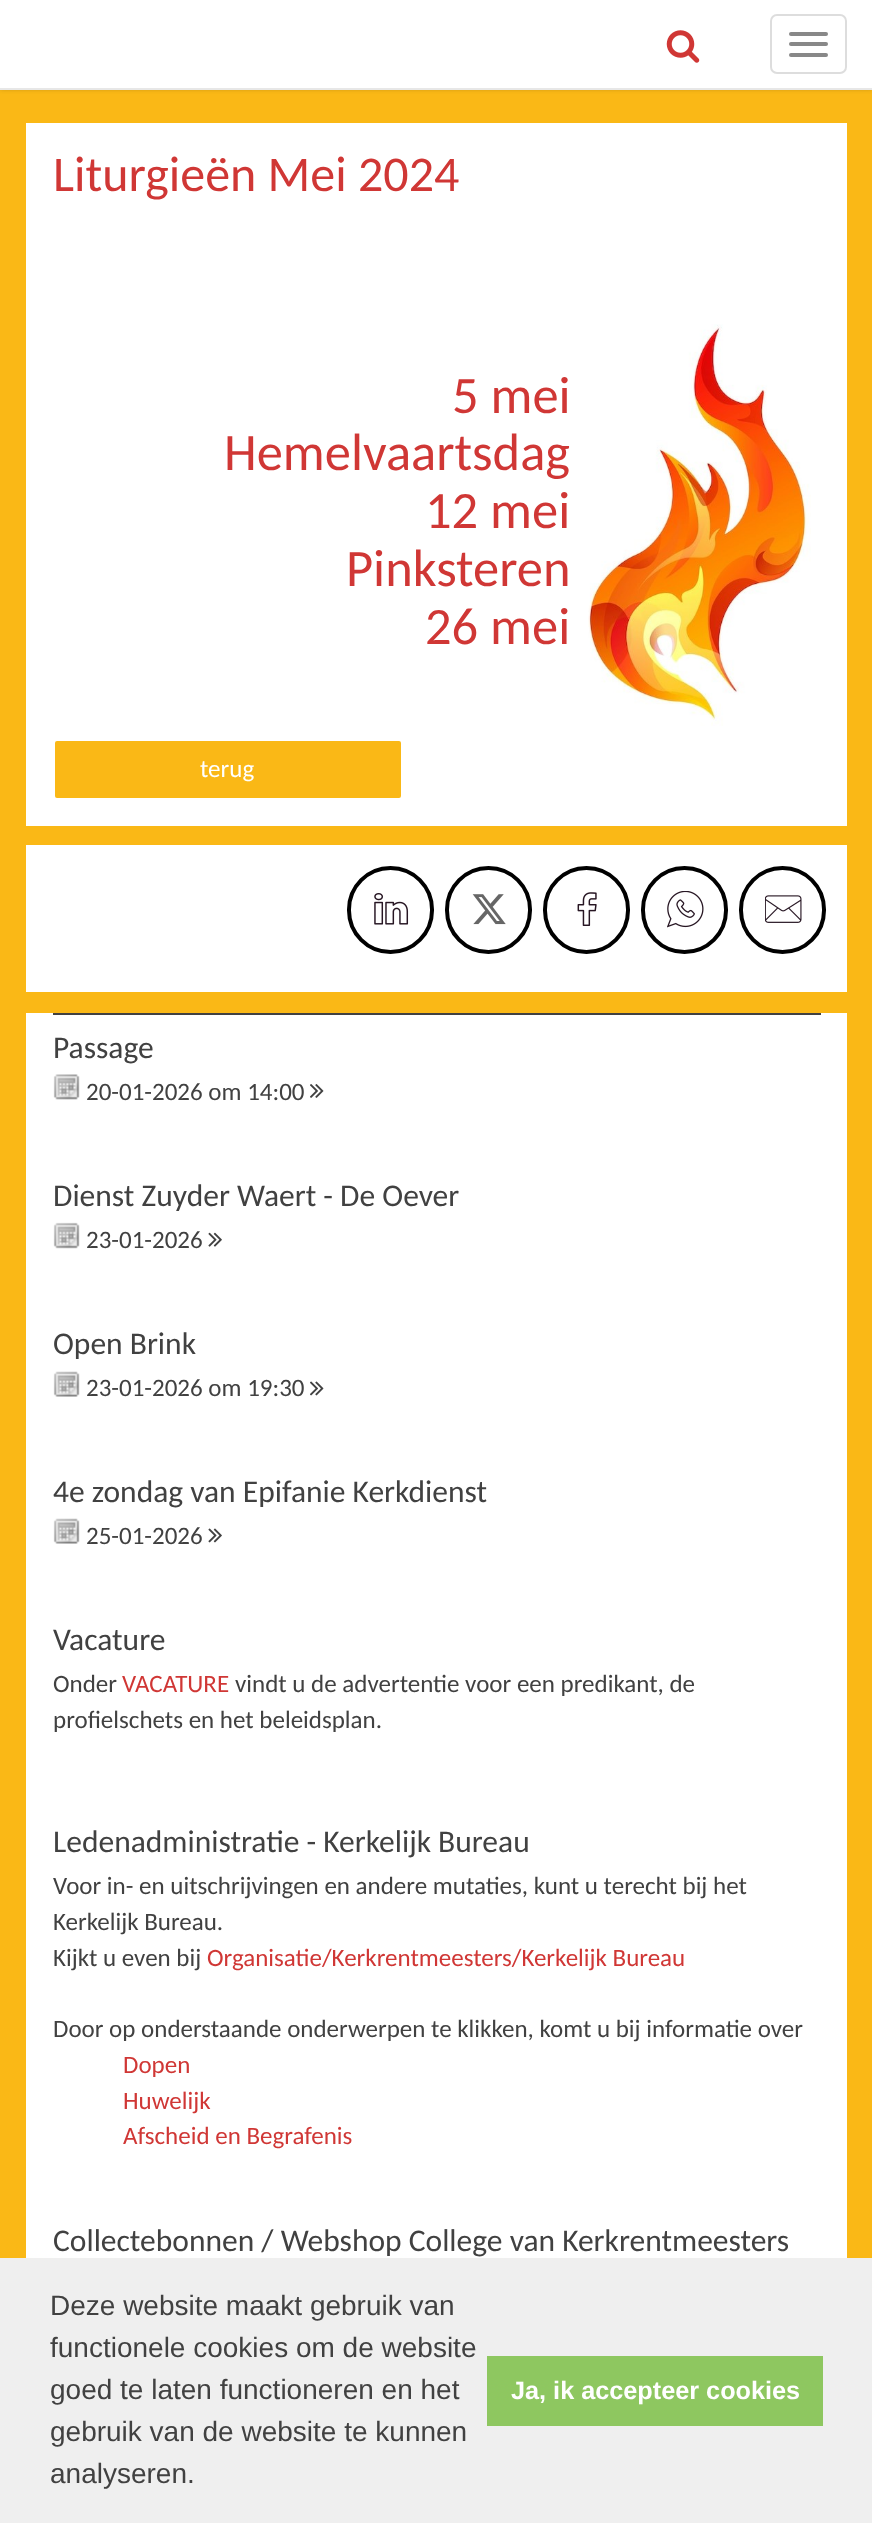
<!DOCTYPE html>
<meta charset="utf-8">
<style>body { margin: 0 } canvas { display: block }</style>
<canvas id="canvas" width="872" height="2523"></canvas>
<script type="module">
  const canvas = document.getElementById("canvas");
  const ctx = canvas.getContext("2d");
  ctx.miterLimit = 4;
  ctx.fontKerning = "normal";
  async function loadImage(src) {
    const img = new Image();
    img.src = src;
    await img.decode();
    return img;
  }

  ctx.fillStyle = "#fab816";
  ctx.fillRect(0, 0, 872, 2523);
  ctx.fillStyle = "rgba(0, 0, 0, 0.22)";
  ctx.filter = "blur(2.5px)";
  ctx.beginPath();
  ctx.rect(0, 0, 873, 89);
  ctx.fill();
  ctx.filter = "none";
  ctx.fillStyle = "#ffffff";
  ctx.fillRect(0, 0, 872, 88);
  ctx.fillStyle = "#e7e7e7";
  ctx.fillRect(0, 88, 872, 2);
  ctx.drawImage(await loadImage("img1.png"), 666, 30, 34, 33);
  ctx.beginPath();
  ctx.roundRect(771, 15, 75, 58, 6);
  ctx.strokeStyle = "#dddddd";
  ctx.lineWidth = 2;
  ctx.stroke();
  ctx.fillStyle = "#888888";
  ctx.beginPath();
  ctx.roundRect(789, 32, 39, 4, 2);
  ctx.fill();
  ctx.beginPath();
  ctx.roundRect(789, 42, 39, 4, 2);
  ctx.fill();
  ctx.beginPath();
  ctx.roundRect(789, 53, 39, 4, 2);
  ctx.fill();
  ctx.fillStyle = "#ffffff";
  ctx.fillRect(26, 123, 821, 703);
  ctx.font = "50px Carlito";
  ctx.fillStyle = "#d03735";
  ctx.fillText("Liturgieën Mei 2024", 53, 191);
  ctx.font = "52.5px Carlito";
  ctx.fillText("5 mei", 452, 413);
  ctx.drawImage(await loadImage("img2.png"), 588, 324, 223, 402);
  ctx.fillText("Hemelvaartsdag", 224, 470);
  ctx.fillText("12 mei", 425, 528);
  ctx.fillText("Pinksteren", 346, 586);
  ctx.fillText("26 mei", 425, 644);
  ctx.fillStyle = "#fab816";
  ctx.beginPath();
  ctx.roundRect(54, 740, 348, 59, 3);
  ctx.fill();
  ctx.strokeStyle = "#ffffff";
  ctx.stroke();
  ctx.font = "25px Carlito";
  ctx.fillStyle = "#ffffff";
  ctx.fillText("terug", 200, 777);
  ctx.fillRect(26, 845, 821, 147);
  ctx.beginPath();
  ctx.roundRect(349, 868, 83, 84, 41.5);
  ctx.strokeStyle = "#000000";
  ctx.lineWidth = 4;
  ctx.stroke();
  ctx.drawImage(await loadImage("img3.png"), 374, 893, 35, 32);
  ctx.beginPath();
  ctx.roundRect(447, 868, 83, 84, 41.5);
  ctx.stroke();
  ctx.drawImage(await loadImage("img4.png"), 472, 894, 34, 31);
  ctx.beginPath();
  ctx.roundRect(545, 868, 83, 84, 41.5);
  ctx.stroke();
  ctx.drawImage(await loadImage("img5.png"), 577, 892, 20, 34);
  ctx.beginPath();
  ctx.roundRect(643, 868, 83, 84, 41.5);
  ctx.stroke();
  ctx.drawImage(await loadImage("img6.png"), 667, 891, 37, 37);
  ctx.beginPath();
  ctx.roundRect(741, 868, 83, 84, 41.5);
  ctx.stroke();
  ctx.drawImage(await loadImage("img7.png"), 765, 895, 37, 28);
  ctx.fillRect(26, 1013, 821, 1245);
  ctx.fillStyle = "#414141";
  ctx.fillRect(53, 1013, 768, 2);
  ctx.font = "31.5px Carlito";
  ctx.fillText("Passage", 53, 1058);
  ctx.drawImage(await loadImage("img8.png"), 53, 1074, 27, 26);
  ctx.font = "25px Carlito";
  ctx.fillText("20-01-2026 om 14:00", 86, 1100);
  ctx.drawImage(await loadImage("img9.png"), 310, 1084, 14, 14);
  ctx.font = "31.5px Carlito";
  ctx.fillText("Dienst Zuyder Waert - De Oever", 53, 1206);
  ctx.drawImage(await loadImage("img10.png"), 53, 1222, 27, 27);
  ctx.font = "25px Carlito";
  ctx.fillText("23-01-2026", 86, 1248);
  ctx.drawImage(await loadImage("img11.png"), 208, 1232, 14, 15);
  ctx.font = "31.5px Carlito";
  ctx.fillText("Open Brink", 53, 1354);
  ctx.drawImage(await loadImage("img12.png"), 53, 1371, 27, 26);
  ctx.font = "25px Carlito";
  ctx.fillText("23-01-2026 om 19:30", 86, 1396);
  ctx.drawImage(await loadImage("img13.png"), 310, 1381, 14, 15);
  ctx.font = "31.5px Carlito";
  ctx.fillText("4e zondag van Epifanie Kerkdienst", 53, 1502);
  ctx.drawImage(await loadImage("img12.png"), 53, 1518, 27, 26);
  ctx.font = "25px Carlito";
  ctx.fillText("25-01-2026", 86, 1544);
  ctx.drawImage(await loadImage("img14.png"), 208, 1528, 14, 15);
  ctx.font = "31.5px Carlito";
  ctx.fillText("Vacature", 53, 1650);
  ctx.font = "25px Carlito";
  ctx.fillText("Onder", 53, 1692);
  ctx.fillStyle = "#d03735";
  ctx.fillText("VACATURE", 122, 1692);
  ctx.fillStyle = "#414141";
  ctx.fillText("vindt u de advertentie voor een predikant, de", 235, 1692);
  ctx.fillText("profielschets en het beleidsplan.", 53, 1728);
  ctx.font = "31.5px Carlito";
  ctx.fillText("Ledenadministratie - Kerkelijk Bureau", 53, 1852);
  ctx.font = "25px Carlito";
  ctx.fillText("Voor in- en uitschrijvingen en andere mutaties, kunt u terecht bij het", 53, 1894);
  ctx.fillText("Kerkelijk Bureau.", 53, 1930);
  ctx.fillText("Kijkt u even bij", 53, 1966);
  ctx.fillStyle = "#d03735";
  ctx.fillText("Organisatie/Kerkrentmeesters/Kerkelijk Bureau", 207, 1966);
  ctx.fillStyle = "#414141";
  ctx.fillText("Door op onderstaande onderwerpen te klikken, komt u bij informatie over", 53, 2037);
  ctx.fillStyle = "#d03735";
  ctx.fillText("Dopen", 123, 2073);
  ctx.fillText("Huwelijk", 123, 2109);
  ctx.fillText("Afscheid en Begrafenis", 123, 2144);
  ctx.font = "31.5px Carlito";
  ctx.fillStyle = "#414141";
  ctx.fillText("Collectebonnen / Webshop College van Kerkrentmeesters", 53, 2251);
  ctx.fillStyle = "#efefef";
  ctx.fillRect(0, 2258, 872, 265);
  ctx.font = "28px Liberation Sans";
  ctx.fillStyle = "#414141";
  ctx.fillText("Deze website maakt gebruik van", 50, 2315);
  ctx.fillText("functionele cookies om de website", 50, 2357);
  ctx.fillText("goed te laten functioneren en het", 50, 2399);
  ctx.fillText("gebruik van de website te kunnen", 50, 2441);
  ctx.fillText("analyseren.", 50, 2483);
  ctx.fillStyle = "#8ec760";
  ctx.fillRect(487, 2356, 336, 70);
  ctx.font = "bold 25.25px Liberation Sans";
  ctx.fillStyle = "#ffffff";
  ctx.fillText("Ja, ik accepteer cookies", 511, 2399);
</script>
